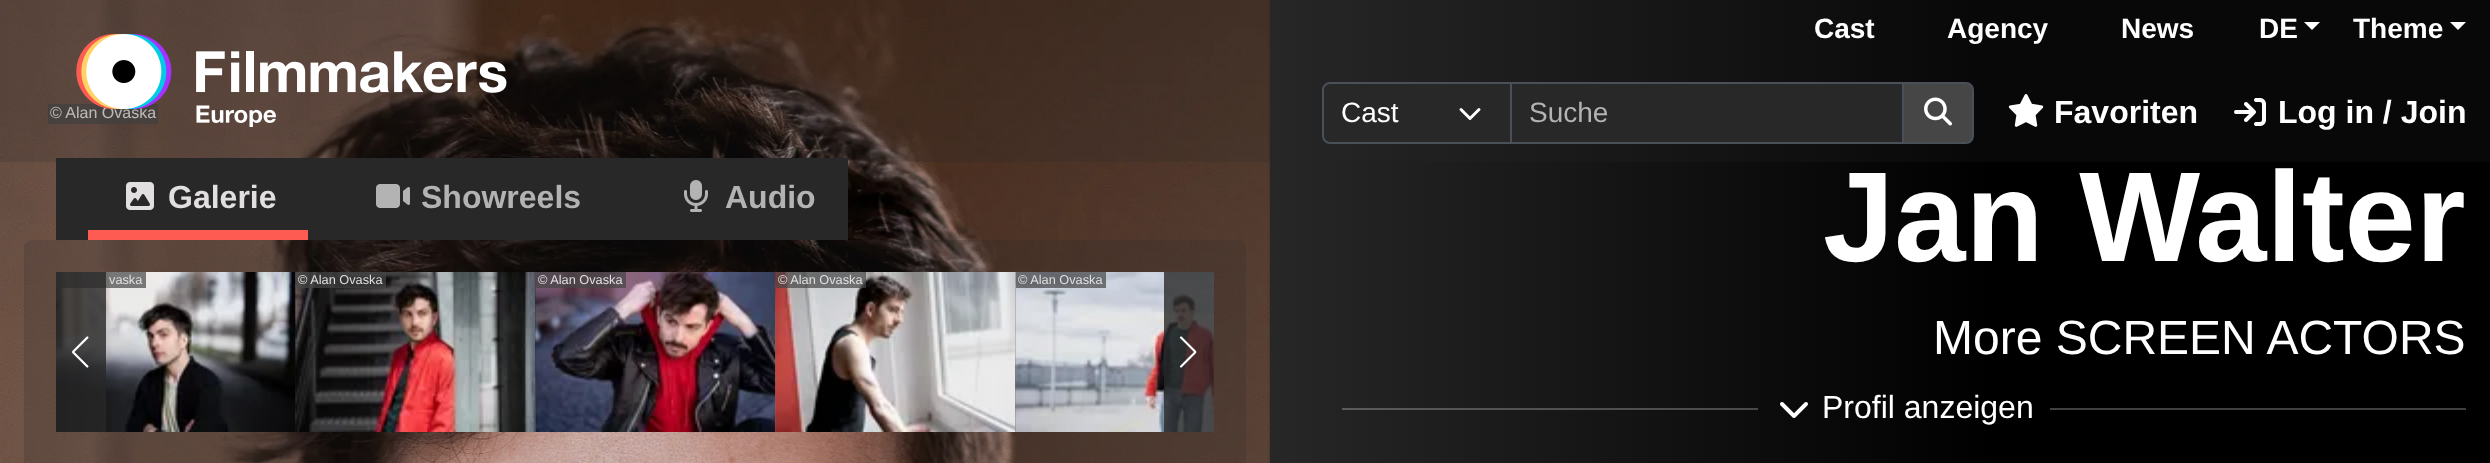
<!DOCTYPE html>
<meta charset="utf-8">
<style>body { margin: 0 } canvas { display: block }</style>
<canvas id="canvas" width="2490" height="463"></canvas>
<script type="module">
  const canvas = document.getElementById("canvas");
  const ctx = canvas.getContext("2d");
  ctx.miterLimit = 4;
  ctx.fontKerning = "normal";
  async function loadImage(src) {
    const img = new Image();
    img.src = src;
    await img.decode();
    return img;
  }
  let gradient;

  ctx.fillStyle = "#282828";
  ctx.fillRect(0, 0, 2490, 463);
  ctx.drawImage(await loadImage("img5.png"), 0, 0, 1270, 463);
  ctx.fillStyle = "rgba(70, 70, 70, 0.7)";
  ctx.fillRect(48, 104, 110, 20);
  ctx.font = "16px Liberation Sans";
  ctx.fillStyle = "#e1dfdf";
  ctx.fillText("© Alan Ovaska", 50, 118);
  gradient = ctx.createLinearGradient(2490, 232, 1246, 232);
  gradient.addColorStop(0, "#000000");
  gradient.addColorStop(0.4, "#000000");
  gradient.addColorStop(1, "rgba(0, 0, 0, 0)");
  ctx.fillStyle = gradient;
  ctx.fillRect(1268, 0, 1222, 463);
  ctx.fillStyle = "#282828";
  ctx.fillRect(56, 158, 792, 82);
  ctx.fillStyle = "rgba(40, 40, 40, 0.2)";
  ctx.fillRect(0, 0, 2490, 162);
  ctx.drawImage(await loadImage("img1.png"), 76, 34, 431, 93);
  ctx.font = "bold 28px Liberation Sans";
  ctx.fillStyle = "#ffffff";
  ctx.fillText("Cast", 1814, 38);
  ctx.fillText("Agency", 1947, 38);
  ctx.fillText("News", 2121, 38);
  ctx.fillText("DE", 2259, 38);
  ctx.beginPath();
  ctx.moveTo(2304, 22);
  ctx.lineTo(2320, 22);
  ctx.lineTo(2312, 30);
  ctx.closePath();
  ctx.fill();
  ctx.fillText("Theme", 2353, 38);
  ctx.beginPath();
  ctx.moveTo(2450, 22);
  ctx.lineTo(2466, 22);
  ctx.lineTo(2458, 30);
  ctx.closePath();
  ctx.fill();
  ctx.fillStyle = "#282828";
  ctx.beginPath();
  ctx.roundRect(1322, 82, 190, 62, [8, 0, 0, 8]);
  ctx.fill();
  ctx.beginPath();
  ctx.moveTo(1461, 109.5);
  ctx.lineTo(1470, 118.5);
  ctx.lineTo(1479, 109.5);
  ctx.strokeStyle = "#ffffff";
  ctx.lineWidth = 3;
  ctx.lineCap = "round";
  ctx.lineJoin = "round";
  ctx.stroke();
  ctx.beginPath();
  ctx.roundRect(1323, 83, 188, 60, [7, 0, 0, 7]);
  ctx.strokeStyle = "#495057";
  ctx.lineWidth = 2;
  ctx.lineJoin = "miter";
  ctx.stroke();
  ctx.font = "28px Liberation Sans";
  ctx.fillStyle = "#ffffff";
  ctx.fillText("Cast", 1341, 122);
  ctx.fillStyle = "#282828";
  ctx.beginPath();
  ctx.rect(1511, 83, 392, 60);
  ctx.fill();
  ctx.stroke();
  ctx.fillStyle = "#b3b3b3";
  ctx.fillText("Suche", 1529, 122);
  ctx.fillStyle = "#464646";
  ctx.beginPath();
  ctx.roundRect(1903, 83, 70, 60, [0, 7, 7, 0]);
  ctx.fill();
  ctx.stroke();
  ctx.drawImage(await loadImage("img2.png"), 1924, 97, 28, 29);
  ctx.drawImage(await loadImage("img3.png"), 2008, 94, 36, 33);
  ctx.font = "bold 32px Liberation Sans";
  ctx.fillStyle = "#ffffff";
  ctx.fillText("Favoriten", 2054, 123);
  ctx.drawImage(await loadImage("img4.png"), 2234, 98, 32, 28);
  ctx.fillText("Log in / Join", 2278, 123);
  ctx.fillStyle = "#fe5c53";
  ctx.fillRect(88, 230, 220, 10);
  ctx.drawImage(await loadImage("img6.png"), 126, 182, 28, 28);
  ctx.fillStyle = "#e1dfdf";
  ctx.fillText("Galerie", 168, 208);
  ctx.drawImage(await loadImage("img7.png"), 376, 184, 34, 24);
  ctx.fillStyle = "#b3b3b3";
  ctx.fillText("Showreels", 421, 208);
  ctx.drawImage(await loadImage("img8.png"), 684, 180, 24, 32);
  ctx.fillText("Audio", 725, 208);
  ctx.fillStyle = "rgba(40, 40, 40, 0.2)";
  ctx.beginPath();
  ctx.moveTo(32, 240);
  ctx.lineTo(1238, 240);
  ctx.bezierCurveTo(1242.5, 240, 1246, 243.5, 1246, 248);
  ctx.lineTo(1246, 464);
  ctx.lineTo(24, 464);
  ctx.lineTo(24, 248);
  ctx.bezierCurveTo(24, 243.5, 27.5, 240, 32, 240);
  ctx.closePath();
  ctx.fill();
  ctx.drawImage(await loadImage("img10.png"), 56, 272, 240, 160);
  ctx.fillStyle = "rgba(70, 70, 70, 0.7)";
  ctx.fillRect(56, 272, 90, 16);
  ctx.fillStyle = "rgba(40, 40, 40, 0.8)";
  ctx.fillRect(56, 272, 50, 160);
  ctx.drawImage(await loadImage("img9.png"), 72, 336, 17, 32);
  ctx.font = "12.75px Liberation Sans";
  ctx.fillStyle = "#e1dfdf";
  ctx.fillText("vaska", 109, 284);
  ctx.drawImage(await loadImage("img11.png"), 295, 272, 241, 160);
  ctx.fillStyle = "rgba(70, 70, 70, 0.7)";
  ctx.fillRect(296, 272, 90, 16);
  ctx.fillStyle = "#e1dfdf";
  ctx.fillText("© Alan Ovaska", 298, 284);
  ctx.drawImage(await loadImage("img12.png"), 535, 272, 241, 160);
  ctx.fillStyle = "rgba(70, 70, 70, 0.7)";
  ctx.fillRect(536, 272, 90, 16);
  ctx.fillStyle = "#e1dfdf";
  ctx.fillText("© Alan Ovaska", 538, 284);
  ctx.drawImage(await loadImage("img13.png"), 775, 272, 241, 160);
  ctx.fillStyle = "rgba(70, 70, 70, 0.7)";
  ctx.fillRect(776, 272, 90, 16);
  ctx.fillStyle = "#e1dfdf";
  ctx.fillText("© Alan Ovaska", 778, 284);
  ctx.drawImage(await loadImage("img14.png"), 1015, 272, 199, 160);
  ctx.fillStyle = "rgba(70, 70, 70, 0.7)";
  ctx.fillRect(1016, 272, 90, 16);
  ctx.fillStyle = "#e1dfdf";
  ctx.fillText("© Alan Ovaska", 1018, 284);
  ctx.fillStyle = "rgba(40, 40, 40, 0.8)";
  ctx.fillRect(1164, 272, 50, 160);
  ctx.drawImage(await loadImage("img15.png"), 1179, 336, 18, 32);
  ctx.font = "bold 128px Liberation Sans";
  ctx.fillStyle = "#ffffff";
  ctx.fillText("Jan Walter", 1823, 261);
  ctx.font = "48px Liberation Sans";
  ctx.fillText("More SCREEN ACTORS", 1933, 354);
  ctx.fillStyle = "rgba(255, 255, 255, 0.25)";
  ctx.fillRect(1342, 408, 416, 2);
  ctx.drawImage(await loadImage("img16.png"), 1780, 402, 28, 16);
  ctx.font = "32px Liberation Sans";
  ctx.fillStyle = "#ffffff";
  ctx.fillText("Profil anzeigen", 1822, 418);
  ctx.fillStyle = "#404040";
  ctx.fillRect(2050, 408, 416, 2);
</script>
